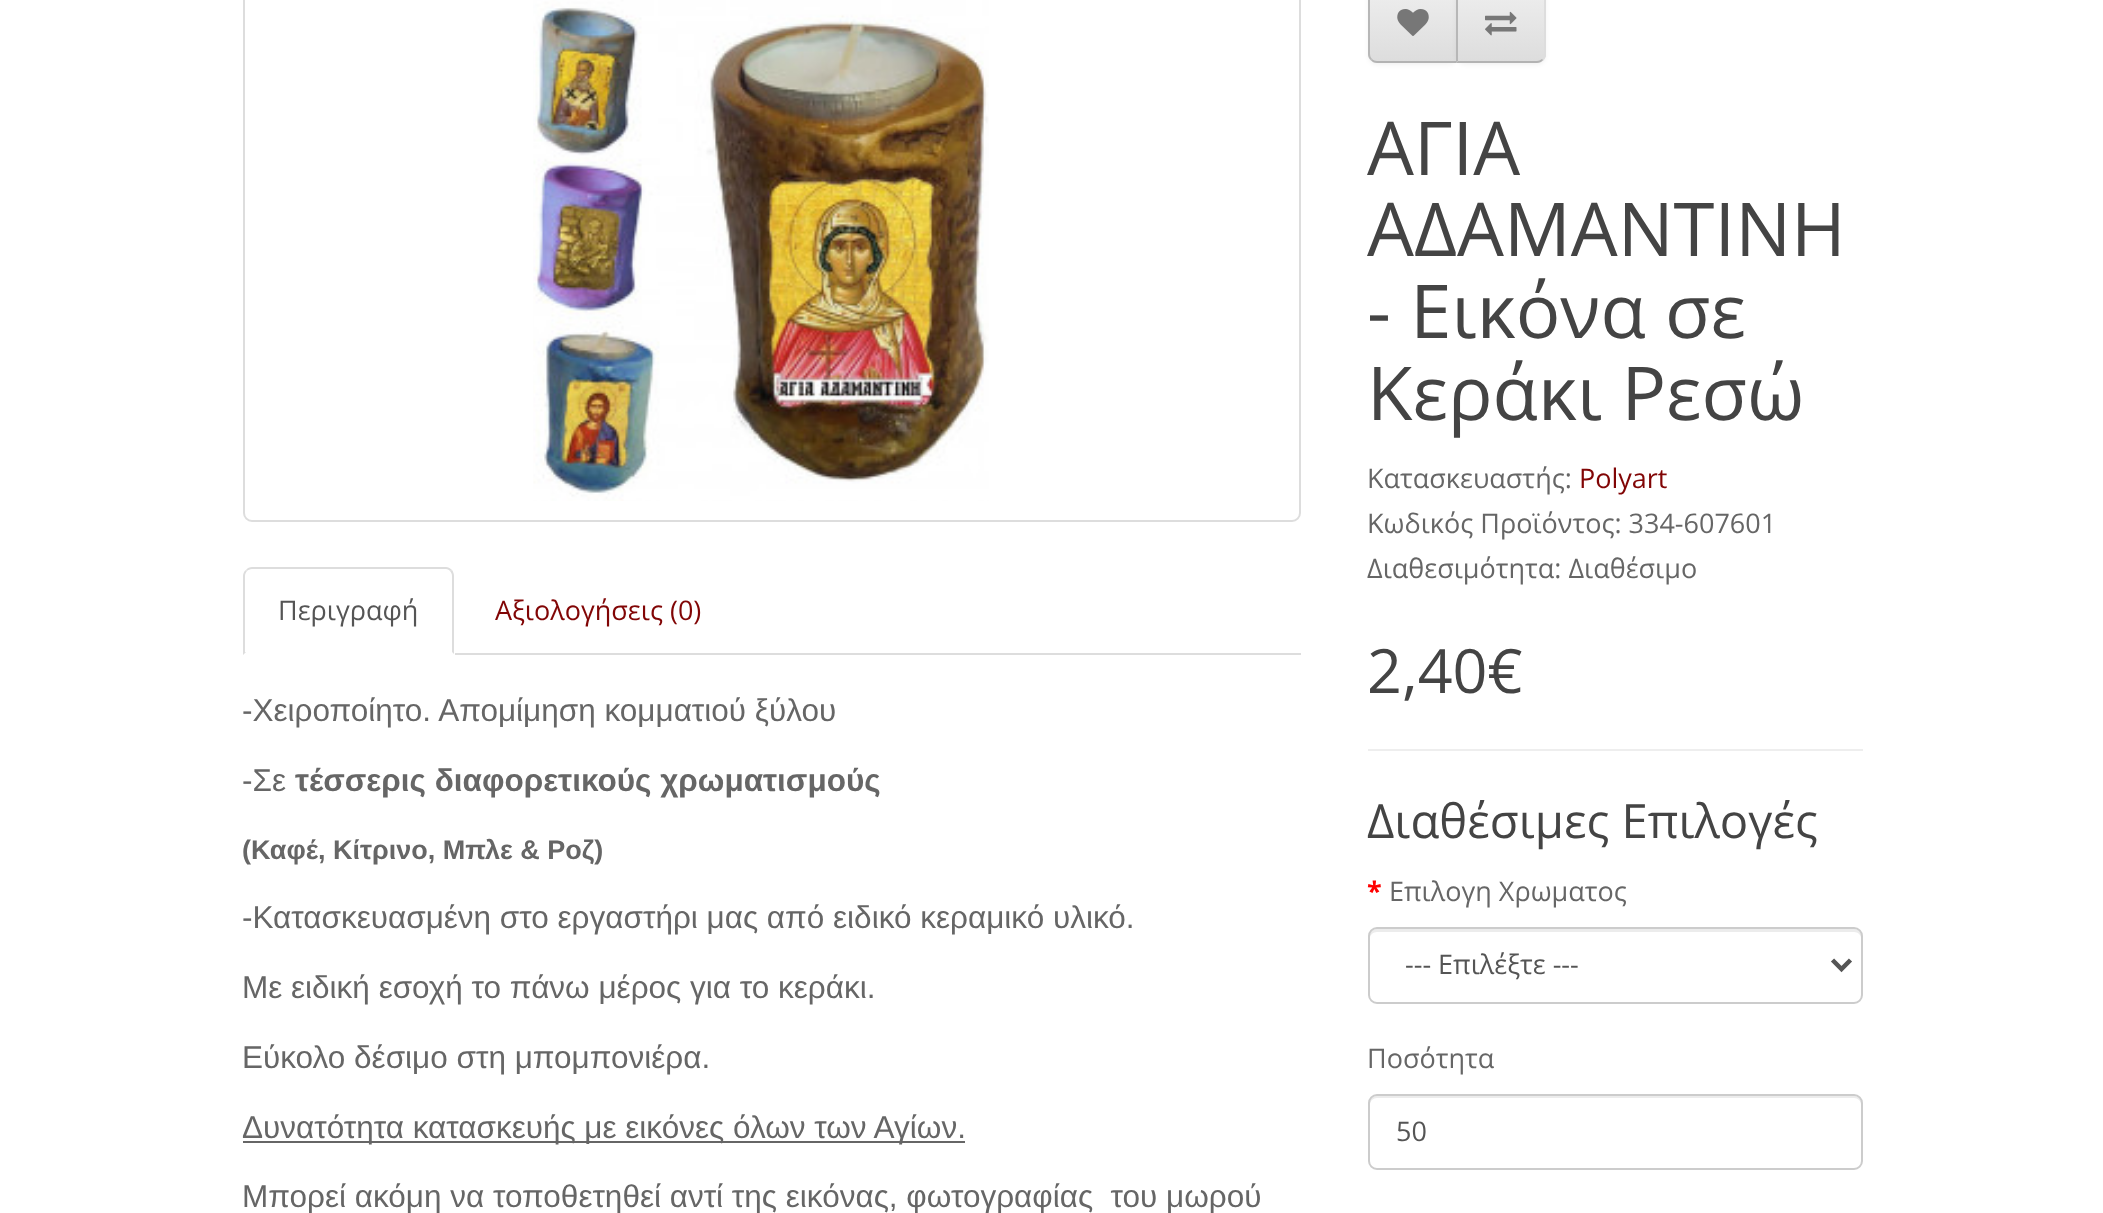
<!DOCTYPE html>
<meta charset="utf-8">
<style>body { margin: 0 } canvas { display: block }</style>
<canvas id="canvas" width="2103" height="1213"></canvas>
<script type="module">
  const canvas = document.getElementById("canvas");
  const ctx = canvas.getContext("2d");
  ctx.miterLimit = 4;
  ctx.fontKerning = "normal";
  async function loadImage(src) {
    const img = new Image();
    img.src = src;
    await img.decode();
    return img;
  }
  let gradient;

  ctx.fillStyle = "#ffffff";
  ctx.fillRect(0, 0, 2103, 1213);
  ctx.beginPath();
  ctx.roundRect(244, -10, 1056, 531, 8);
  ctx.strokeStyle = "#dddddd";
  ctx.lineWidth = 2;
  ctx.stroke();
  ctx.drawImage(await loadImage("img1.png"), 533, 0, 456, 501);
  ctx.fillStyle = "#dddddd";
  ctx.fillRect(455, 653, 846, 2);
  ctx.beginPath();
  ctx.moveTo(252, 567);
  ctx.bezierCurveTo(250, 567, 247, 568, 246, 570);
  ctx.lineTo(247, 571);
  ctx.bezierCurveTo(248, 570, 250, 569, 252, 569);
  ctx.lineTo(446, 569);
  ctx.bezierCurveTo(448, 569, 449, 570, 450, 571);
  ctx.lineTo(452, 570);
  ctx.bezierCurveTo(450, 568, 448, 567, 446, 567);
  ctx.closePath();
  ctx.fill();
  ctx.beginPath();
  ctx.moveTo(452, 570);
  ctx.bezierCurveTo(453, 571, 454, 574, 454, 576);
  ctx.lineTo(454, 654);
  ctx.lineTo(452, 652);
  ctx.lineTo(452, 576);
  ctx.bezierCurveTo(452, 574, 451, 572, 450, 571);
  ctx.closePath();
  ctx.fill();
  ctx.beginPath();
  ctx.moveTo(243, 655);
  ctx.lineTo(246, 652);
  ctx.lineTo(245, 652);
  ctx.lineTo(245, 576);
  ctx.bezierCurveTo(245, 574, 246, 572, 247, 571);
  ctx.lineTo(246, 570);
  ctx.bezierCurveTo(244, 571, 243, 574, 243, 576);
  ctx.closePath();
  ctx.fill();
  ctx.font = "27px Open Sans";
  ctx.fillStyle = "#555555";
  ctx.fillText("Περιγραφή", 278, 620);
  ctx.fillStyle = "#810505";
  ctx.fillText("Αξιολογήσεις (0)", 495, 620);
  ctx.font = "31.5px Liberation Sans";
  ctx.fillStyle = "#666666";
  ctx.fillText("-Χειροποίητο. Απομίμηση κομματιού ξύλου", 242, 721);
  ctx.fillText("-Σε", 242, 791);
  ctx.font = "bold 31.5px Liberation Sans";
  ctx.fillText("τέσσερις διαφορετικούς χρωματισμούς", 295, 791);
  ctx.font = "bold 27px Liberation Sans";
  ctx.fillText("(Καφέ, Κίτρινο, Μπλε & Ροζ)", 242, 859);
  ctx.font = "31.5px Liberation Sans";
  ctx.fillText("-Κατασκευασμένη στο εργαστήρι μας από ειδικό κεραμικό υλικό.", 242, 928);
  ctx.fillText("Με ειδική εσοχή το πάνω μέρος για το κεράκι.", 242, 998);
  ctx.fillText("Εύκολο δέσιμο στη μπομπονιέρα.", 242, 1068);
  ctx.fillRect(243, 1141, 722, 2);
  ctx.fillText("Δυνατότητα κατασκευής με εικόνες όλων των Αγίων.", 242, 1138);
  ctx.fillText("Μπορεί ακόμη να τοποθετηθεί αντί της εικόνας, φωτογραφίας  του μωρού", 242, 1207);
  ctx.fillStyle = "rgba(0, 0, 0, 0.05)";
  ctx.filter = "blur(2px)";
  ctx.beginPath();
  ctx.roundRect(1368, -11, 90, 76, 9);
  ctx.fill();
  ctx.filter = "none";
  ctx.save();
  ctx.beginPath();
  ctx.moveTo(1377, -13);
  ctx.lineTo(1458, -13);
  ctx.lineTo(1458, 63);
  ctx.lineTo(1377, 63);
  ctx.bezierCurveTo(1372, 63, 1368, 59, 1368, 54);
  ctx.lineTo(1368, -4);
  ctx.bezierCurveTo(1368, -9, 1372, -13, 1377, -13);
  ctx.closePath();
  ctx.clip();
  gradient = ctx.createLinearGradient(1413, -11, 1413, 61);
  gradient.addColorStop(0, "#eeeeee");
  gradient.addColorStop(1, "#dddddd");
  ctx.fillStyle = gradient;
  ctx.fillRect(1368, 0, 88, 61);
  ctx.restore();
  ctx.fillStyle = "#b3b3b3";
  ctx.beginPath();
  ctx.moveTo(1458, 63);
  ctx.lineTo(1456, 61);
  ctx.lineTo(1377, 61);
  ctx.bezierCurveTo(1375, 61, 1373, 60, 1372, 59);
  ctx.lineTo(1371, 60);
  ctx.bezierCurveTo(1372, 62, 1374, 63, 1377, 63);
  ctx.closePath();
  ctx.fill();
  ctx.fillStyle = "#b7b7b7";
  ctx.beginPath();
  ctx.moveTo(1368, -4);
  ctx.lineTo(1368, 54);
  ctx.bezierCurveTo(1368, 56, 1369, 59, 1371, 60);
  ctx.lineTo(1372, 59);
  ctx.bezierCurveTo(1371, 58, 1370, 56, 1370, 54);
  ctx.lineTo(1370, -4);
  ctx.bezierCurveTo(1370, -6, 1371, -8, 1372, -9);
  ctx.lineTo(1371, -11);
  ctx.bezierCurveTo(1369, -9, 1368, -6, 1368, -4);
  ctx.closePath();
  ctx.fill();
  ctx.drawImage(await loadImage("img2.png"), 1397, 9, 32, 27);
  ctx.fillStyle = "rgba(0, 0, 0, 0.05)";
  ctx.filter = "blur(2px)";
  ctx.beginPath();
  ctx.roundRect(1456, -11, 90, 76, 9);
  ctx.fill();
  ctx.filter = "none";
  ctx.fillStyle = "#e7e7e7";
  ctx.beginPath();
  ctx.moveTo(1456, -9);
  ctx.lineTo(1537, -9);
  ctx.bezierCurveTo(1542, -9, 1546, -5, 1546, 0);
  ctx.lineTo(1546, 54);
  ctx.bezierCurveTo(1546, 59, 1542, 63, 1537, 63);
  ctx.lineTo(1456, 63);
  ctx.closePath();
  ctx.fill();
  ctx.save();
  ctx.beginPath();
  ctx.moveTo(1456, -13);
  ctx.lineTo(1537, -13);
  ctx.bezierCurveTo(1542, -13, 1546, -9, 1546, -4);
  ctx.lineTo(1546, 54);
  ctx.bezierCurveTo(1546, 59, 1542, 63, 1537, 63);
  ctx.lineTo(1456, 63);
  ctx.closePath();
  ctx.clip();
  gradient = ctx.createLinearGradient(1501, -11, 1501, 61);
  gradient.addColorStop(0, "#eeeeee");
  gradient.addColorStop(1, "#dddddd");
  ctx.fillStyle = gradient;
  ctx.fillRect(1458, 0, 88, 61);
  ctx.restore();
  ctx.fillStyle = "#dddddd";
  ctx.beginPath();
  ctx.moveTo(1546, 56);
  ctx.bezierCurveTo(1545, 58, 1544, 59, 1543, 60);
  ctx.lineTo(1542, 59);
  ctx.bezierCurveTo(1543, 58, 1544, 56, 1544, 54);
  ctx.lineTo(1544, -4);
  ctx.bezierCurveTo(1544, -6, 1543, -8, 1541, -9);
  ctx.lineTo(1543, -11);
  ctx.bezierCurveTo(1544, -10, 1545, -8, 1546, -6);
  ctx.closePath();
  ctx.fill();
  ctx.fillStyle = "#b3b3b3";
  ctx.beginPath();
  ctx.moveTo(1456, 63);
  ctx.lineTo(1537, 63);
  ctx.bezierCurveTo(1539, 63, 1542, 62, 1543, 60);
  ctx.lineTo(1542, 59);
  ctx.bezierCurveTo(1540, 60, 1539, 61, 1537, 61);
  ctx.lineTo(1458, 61);
  ctx.closePath();
  ctx.fill();
  ctx.fillStyle = "#b7b7b7";
  ctx.beginPath();
  ctx.moveTo(1458, -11);
  ctx.lineTo(1458, 61);
  ctx.lineTo(1456, 63);
  ctx.lineTo(1456, -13);
  ctx.closePath();
  ctx.fill();
  ctx.drawImage(await loadImage("img3.png"), 1485, 11, 32, 25);
  ctx.font = "74.25px Open Sans";
  ctx.fillStyle = "#444444";
  ctx.fillText("ΑΓΙΑ", 1367, 175);
  ctx.fillText("ΑΔΑΜΑΝΤΙΝΗ", 1367, 256);
  ctx.fillText("- Εικόνα σε", 1367, 338);
  ctx.fillText("Κεράκι Ρεσώ", 1367, 420);
  ctx.font = "27px Open Sans";
  ctx.fillStyle = "#666666";
  ctx.fillText("Κατασκευαστής:", 1367, 488);
  ctx.fillStyle = "#810505";
  ctx.fillText("Polyart", 1579, 488);
  ctx.fillStyle = "#666666";
  ctx.fillText("Κωδικός Προϊόντος: 334-607601", 1367, 533);
  ctx.fillText("Διαθεσιμότητα: Διαθέσιμο", 1367, 578);
  ctx.font = "61px Open Sans";
  ctx.fillStyle = "#444444";
  ctx.fillText("2,40€", 1367, 693);
  ctx.fillStyle = "#eeeeee";
  ctx.fillRect(1368, 749, 495, 2);
  ctx.font = "47.25px Open Sans";
  ctx.fillStyle = "#444444";
  ctx.fillText("Διαθέσιμες Επιλογές", 1367, 838);
  ctx.font = "bold 27px Open Sans";
  ctx.fillStyle = "#ff0000";
  ctx.fillText("*", 1367, 901);
  ctx.font = "27px Open Sans";
  ctx.fillStyle = "#666666";
  ctx.fillText("Επιλογη Χρωματος", 1389, 901);
  ctx.fillStyle = "#ececec";
  ctx.beginPath();
  ctx.moveTo(1377, 932);
  ctx.lineTo(1854, 932);
  ctx.bezierCurveTo(1858, 932, 1861, 935, 1861, 938);
  ctx.lineTo(1861, 936);
  ctx.bezierCurveTo(1861, 932, 1858, 929, 1854, 929);
  ctx.lineTo(1377, 929);
  ctx.bezierCurveTo(1373, 929, 1370, 932, 1370, 936);
  ctx.lineTo(1370, 938);
  ctx.bezierCurveTo(1370, 935, 1373, 932, 1377, 932);
  ctx.closePath();
  ctx.fill();
  ctx.beginPath();
  ctx.roundRect(1369, 928, 493, 75, 8);
  ctx.strokeStyle = "#cccccc";
  ctx.stroke();
  ctx.beginPath();
  ctx.moveTo(1832.5, 960);
  ctx.lineTo(1841.5, 969);
  ctx.lineTo(1850.5, 960);
  ctx.strokeStyle = "#555555";
  ctx.lineWidth = 4.5;
  ctx.stroke();
  ctx.fillStyle = "#555555";
  ctx.fillText("--- Επιλέξτε ---", 1405, 974);
  ctx.fillStyle = "#666666";
  ctx.fillText("Ποσότητα", 1367, 1068);
  ctx.fillStyle = "#ececec";
  ctx.beginPath();
  ctx.moveTo(1377, 1098);
  ctx.lineTo(1854, 1098);
  ctx.bezierCurveTo(1858, 1098, 1861, 1101, 1861, 1105);
  ctx.lineTo(1861, 1103);
  ctx.bezierCurveTo(1861, 1099, 1858, 1096, 1854, 1096);
  ctx.lineTo(1377, 1096);
  ctx.bezierCurveTo(1373, 1096, 1370, 1099, 1370, 1103);
  ctx.lineTo(1370, 1105);
  ctx.bezierCurveTo(1370, 1101, 1373, 1098, 1377, 1098);
  ctx.closePath();
  ctx.fill();
  ctx.beginPath();
  ctx.roundRect(1369, 1095, 493, 74, 8);
  ctx.strokeStyle = "#cccccc";
  ctx.lineWidth = 2;
  ctx.stroke();
  ctx.fillStyle = "#555555";
  ctx.fillText("50", 1396, 1141);
</script>
